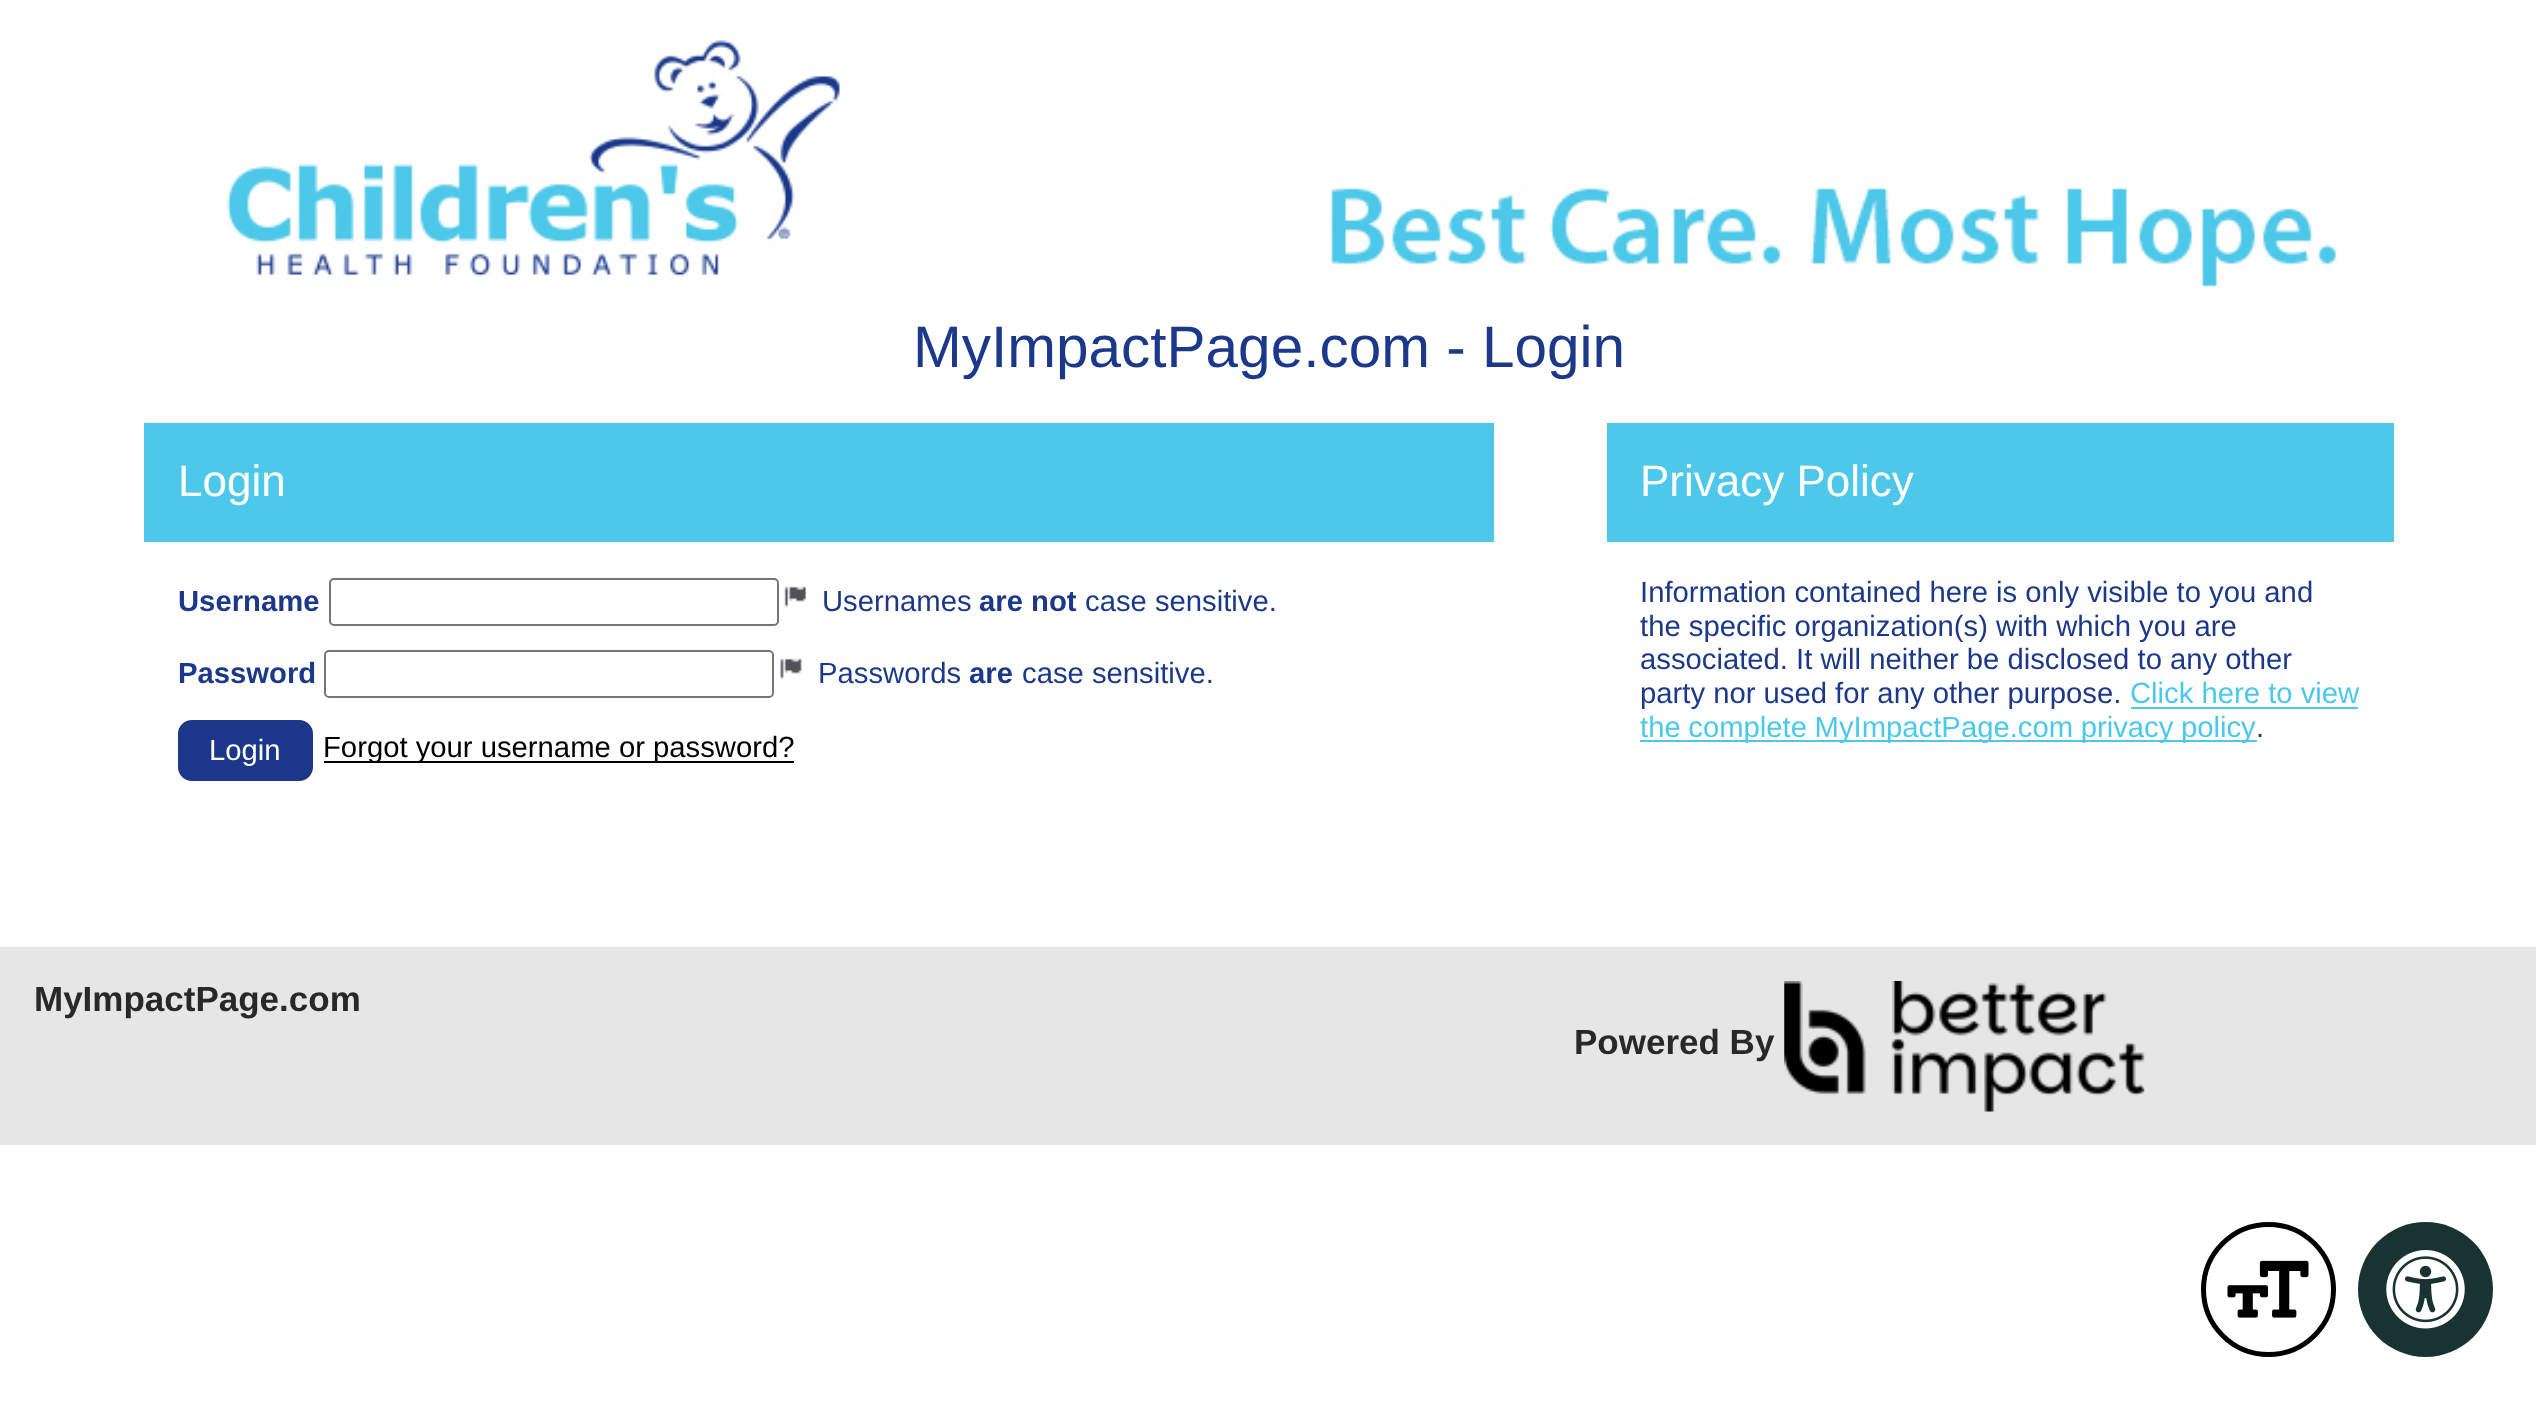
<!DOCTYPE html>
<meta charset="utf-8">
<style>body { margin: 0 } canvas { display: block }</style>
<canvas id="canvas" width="2536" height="1402"></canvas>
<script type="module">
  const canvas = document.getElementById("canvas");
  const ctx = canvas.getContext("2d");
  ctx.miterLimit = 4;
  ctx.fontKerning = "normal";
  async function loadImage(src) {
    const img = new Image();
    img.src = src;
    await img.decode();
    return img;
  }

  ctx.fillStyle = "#ffffff";
  ctx.fillRect(0, 0, 2536, 1402);
  ctx.drawImage(await loadImage("img1.png"), 226, 39, 2111, 248);
  ctx.font = "58.5px Liberation Sans";
  ctx.fillStyle = "#1c388b";
  ctx.fillText("MyImpactPage.com - Login", 913, 367);
  ctx.fillStyle = "#4dc8ea";
  ctx.fillRect(144, 423, 1350, 119);
  ctx.font = "44px Liberation Sans";
  ctx.fillStyle = "#ffffff";
  ctx.fillText("Login", 178, 496);
  ctx.font = "bold 29.25px Liberation Sans";
  ctx.fillStyle = "#1c388b";
  ctx.fillText("Username", 178, 611);
  ctx.beginPath();
  ctx.roundRect(330, 579, 448, 46, 4);
  ctx.strokeStyle = "#767676";
  ctx.lineWidth = 2;
  ctx.stroke();
  ctx.drawImage(await loadImage("img2.png"), 784, 586, 23, 22);
  ctx.font = "29.25px Liberation Sans";
  ctx.fillText("Usernames", 822, 611);
  ctx.font = "bold 29.25px Liberation Sans";
  ctx.fillText("are not", 979, 611);
  ctx.font = "29.25px Liberation Sans";
  ctx.fillText("case sensitive.", 1085, 611);
  ctx.font = "bold 29.25px Liberation Sans";
  ctx.fillText("Password", 178, 683);
  ctx.beginPath();
  ctx.roundRect(325, 651, 448, 46, 4);
  ctx.stroke();
  ctx.drawImage(await loadImage("img3.png"), 780, 658, 22, 22);
  ctx.font = "29.25px Liberation Sans";
  ctx.fillText("Passwords", 818, 683);
  ctx.font = "bold 29.25px Liberation Sans";
  ctx.fillText("are", 969, 683);
  ctx.font = "29.25px Liberation Sans";
  ctx.fillText("case sensitive.", 1022, 683);
  ctx.fillStyle = "#1c378a";
  ctx.beginPath();
  ctx.roundRect(179, 721, 133, 59, 13);
  ctx.fill();
  ctx.strokeStyle = "#1c378a";
  ctx.stroke();
  ctx.fillStyle = "#ffffff";
  ctx.fillText("Login", 209, 760);
  ctx.fillStyle = "#000000";
  ctx.fillRect(324, 761, 470, 2);
  ctx.fillText("Forgot your username or password?", 323, 757);
  ctx.fillStyle = "#4dc8ea";
  ctx.fillRect(1607, 423, 787, 119);
  ctx.font = "44px Liberation Sans";
  ctx.fillStyle = "#ffffff";
  ctx.fillText("Privacy Policy", 1640, 496);
  ctx.font = "29.25px Liberation Sans";
  ctx.fillStyle = "#1c388b";
  ctx.fillText("Information contained here is only visible to you and", 1640, 602);
  ctx.fillText("the specific organization(s) with which you are", 1640, 636);
  ctx.fillText("associated. It will neither be disclosed to any other", 1640, 669);
  ctx.fillText("party nor used for any other purpose.", 1640, 703);
  ctx.fillStyle = "#4cc8eb";
  ctx.fillText("Click here to view", 2130, 703);
  ctx.fillRect(2131, 707, 227, 2);
  ctx.fillRect(1640, 740, 617, 2);
  ctx.wordSpacing = "-0.5px";
  ctx.fillText("the complete MyImpactPage.com privacy policy", 1640, 737);
  ctx.wordSpacing = "0px";
  ctx.fillStyle = "#1c388b";
  ctx.fillText(".", 2256, 737);
  ctx.fillStyle = "#e6e6e6";
  ctx.fillRect(0, 947, 2536, 198);
  ctx.font = "bold 35px Liberation Sans";
  ctx.fillStyle = "#282828";
  ctx.fillText("MyImpactPage.com", 34, 1011);
  ctx.fillText("Powered By", 1574, 1054);
  ctx.drawImage(await loadImage("img4.png"), 1784, 981, 361, 131);
  ctx.beginPath();
  ctx.arc(2268.5, 1289.5, 65, 0, Math.PI * 2);
  ctx.strokeStyle = "#000000";
  ctx.lineWidth = 5;
  ctx.stroke();
  ctx.drawImage(await loadImage("img5.png"), 2227, 1260, 82, 58);
  ctx.fillStyle = "#183331";
  ctx.beginPath();
  ctx.arc(2425.5, 1289.5, 67.5, 0, Math.PI * 2);
  ctx.fill();
  ctx.drawImage(await loadImage("img6.png"), 2386, 1250, 79, 79);
</script>
